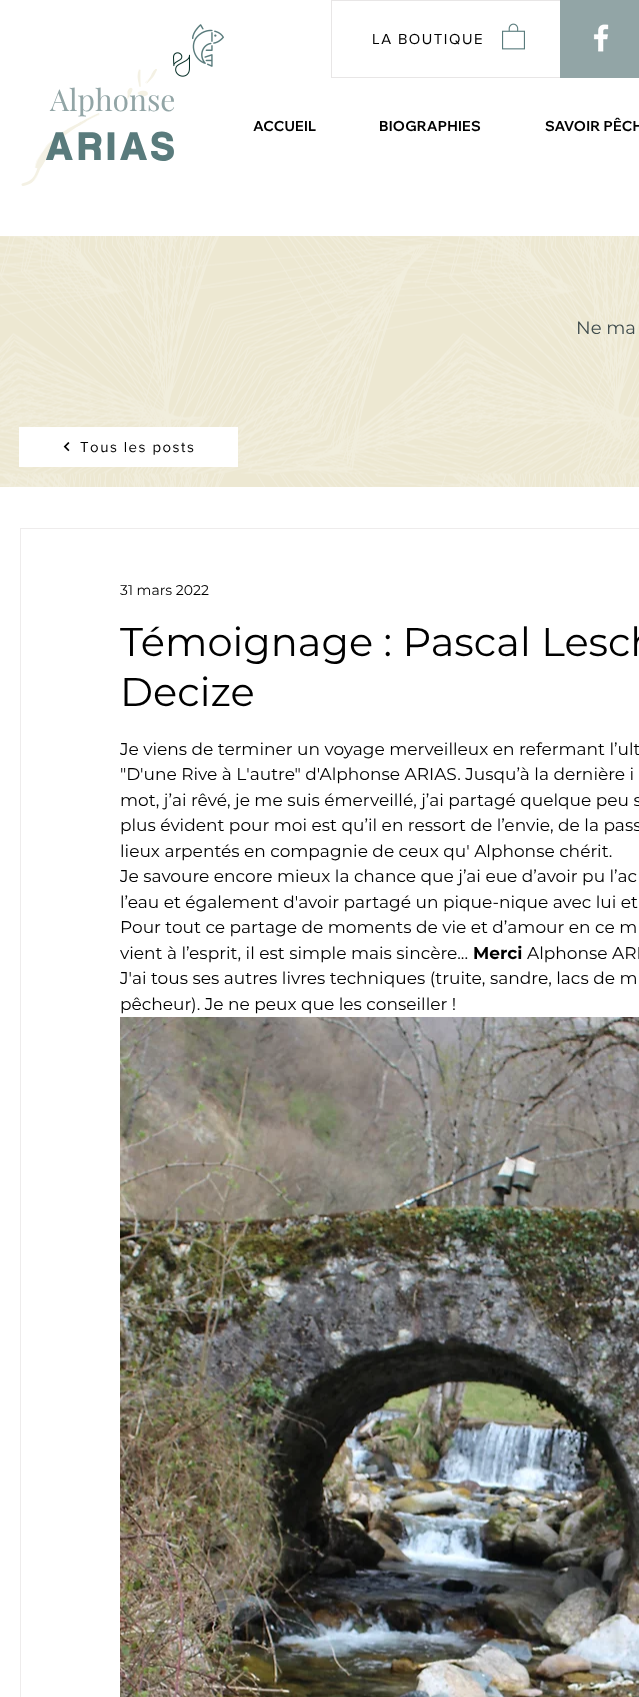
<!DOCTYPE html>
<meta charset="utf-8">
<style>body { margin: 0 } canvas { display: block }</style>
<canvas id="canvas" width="639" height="1697"></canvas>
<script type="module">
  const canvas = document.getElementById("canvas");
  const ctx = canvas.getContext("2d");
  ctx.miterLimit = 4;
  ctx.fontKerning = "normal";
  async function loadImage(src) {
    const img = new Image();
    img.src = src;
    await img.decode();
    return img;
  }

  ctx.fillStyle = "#ffffff";
  ctx.fillRect(0, 0, 639, 1697);
  ctx.strokeStyle = "#e8e6e6";
  ctx.strokeRect(331.5, 0.5, 307, 77);
  ctx.drawImage(await loadImage("img1.png"), 502, 23, 23, 27);
  ctx.fillStyle = "#92a5a6";
  ctx.fillRect(560, 0, 79, 78);
  ctx.letterSpacing = "1.5px";
  ctx.font = "15px 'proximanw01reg'";
  ctx.fillStyle = "#000000";
  ctx.fillText("LA BOUTIQUE", 372, 44);
  ctx.drawImage(await loadImage("img2.png"), 593, 24, 16, 28);
  ctx.drawImage(await loadImage("img3.png"), 173, 52, 17, 25);
  ctx.drawImage(await loadImage("img4.png"), 192, 24, 32, 43);
  ctx.drawImage(await loadImage("img5.png"), 21, 69, 136, 117);
  ctx.letterSpacing = "0px";
  ctx.font = "30px Playfair Display";
  ctx.fillStyle = "#92a5a6";
  ctx.fillText("Alphonse", 50, 111);
  ctx.letterSpacing = "6px";
  ctx.font = "bold 40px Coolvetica";
  ctx.fillStyle = "#597b7c";
  ctx.fillText("ARIAS", 46, 160);
  ctx.letterSpacing = "0.25px";
  ctx.font = "bold 14px Wix Madefor Display";
  ctx.fillStyle = "#000000";
  ctx.fillText("ACCUEIL", 253, 131);
  ctx.fillText("BIOGRAPHIES", 379, 131);
  ctx.fillText("SAVOIR PÊCH", 545, 131);
  ctx.fillStyle = "#ede8d2";
  ctx.fillRect(0, 236, 639, 251);
  ctx.drawImage(await loadImage("img6.png"), 0, 236, 639, 251);
  ctx.letterSpacing = "0px";
  ctx.font = "18px Montserrat";
  ctx.fillStyle = "#3f4c4d";
  ctx.fillText("Ne ma", 576, 334);
  ctx.fillStyle = "#ffffff";
  ctx.fillRect(19, 427, 219, 40);
  ctx.drawImage(await loadImage("img7.png"), 63, 442, 7, 10);
  ctx.letterSpacing = "1.5px";
  ctx.font = "15px 'proximanw01reg'";
  ctx.fillStyle = "#000000";
  ctx.fillText("Tous les posts", 80, 452);
  ctx.strokeStyle = "#eeecec";
  ctx.strokeRect(20.5, 528.5, 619, 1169);
  ctx.letterSpacing = "0px";
  ctx.font = "14px Montserrat";
  ctx.fillText("31 mars 2022", 120, 595);
  ctx.font = "40px Montserrat";
  ctx.fillText("Témoignage : Pascal Lesch", 120, 656);
  ctx.fillText("Decize", 120, 706);
  ctx.font = "17px Montserrat";
  ctx.fillText("Je viens de terminer un voyage merveilleux en refermant l’ult", 120, 755);
  ctx.fillText("\"D'une Rive à L'autre\" d'Alphonse ARIAS. Jusqu’à la dernière i", 120, 780);
  ctx.fillText("mot, j’ai rêvé, je me suis émerveillé, j’ai partagé quelque peu s", 120, 806);
  ctx.fillText("plus évident pour moi est qu’il en ressort de l’envie, de la pass", 120, 831);
  ctx.fillText("lieux arpentés en compagnie de ceux qu' Alphonse chérit.", 120, 857);
  ctx.fillText("Je savoure encore mieux la chance que j’ai eue d’avoir pu l’ac", 120, 882);
  ctx.fillText("l’eau et également d'avoir partagé un pique-nique avec lui et", 120, 908);
  ctx.fillText("Pour tout ce partage de moments de vie et d’amour en ce m", 120, 933);
  ctx.fillText("vient à l’esprit, il est simple mais sincère...", 120, 959);
  ctx.font = "bold 17px Montserrat";
  ctx.fillText("Merci", 473, 959);
  ctx.font = "17px Montserrat";
  ctx.fillText("Alphonse ARI", 527, 959);
  ctx.fillText("J'ai tous ses autres livres techniques (truite, sandre, lacs de m", 120, 984);
  ctx.fillText("pêcheur). Je ne peux que les conseiller !", 120, 1010);
  ctx.drawImage(await loadImage("img8.png"), 120, 1017, 519, 680);
</script>
